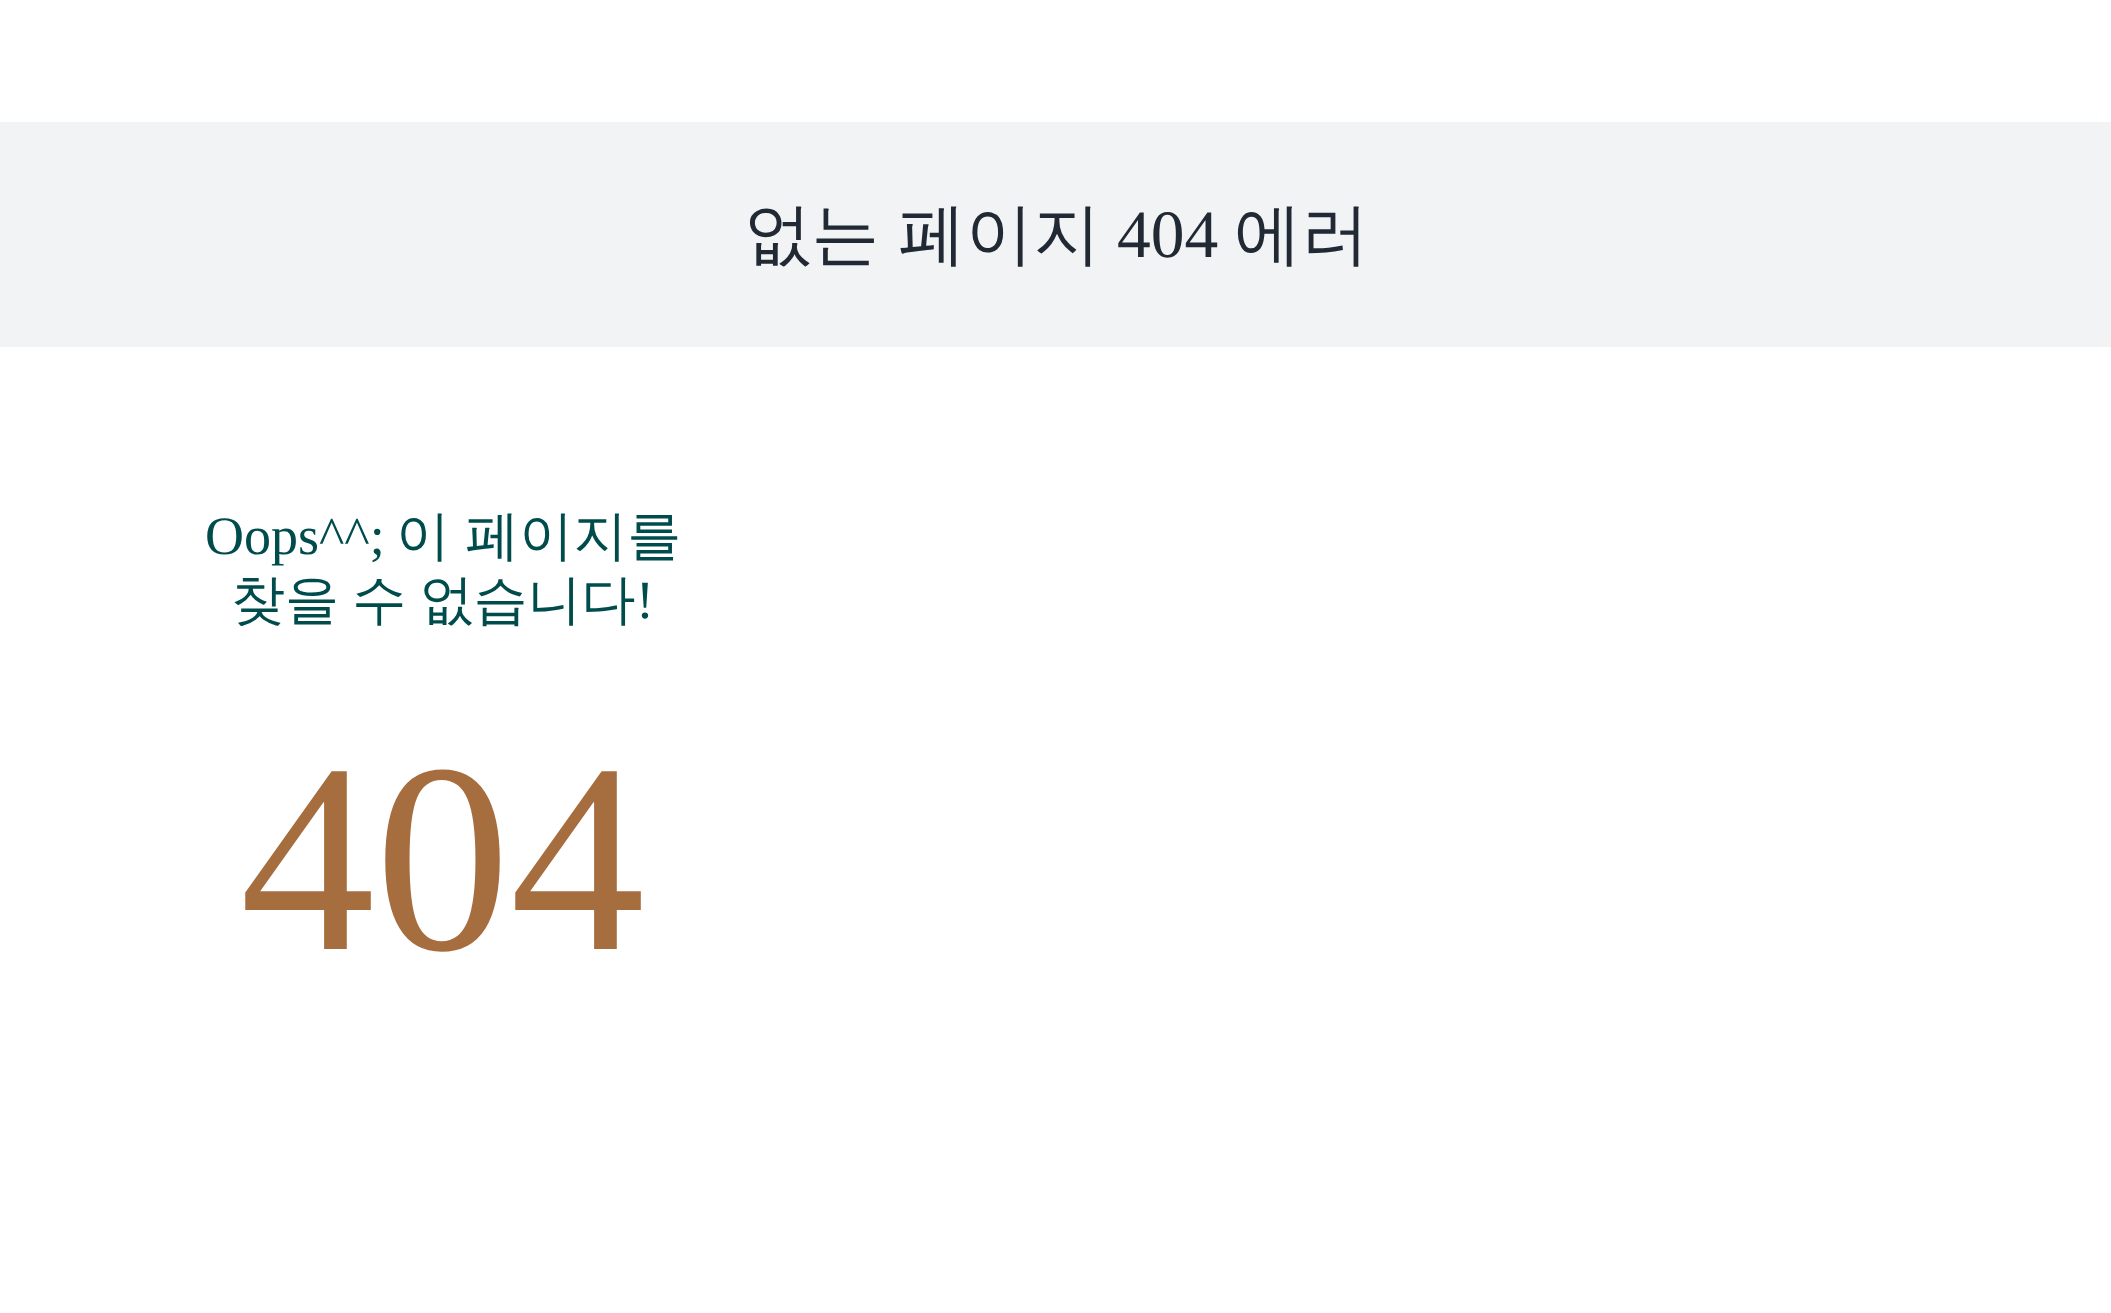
<!DOCTYPE html>
<meta charset="utf-8">
<style>body { margin: 0 } canvas { display: block }</style>
<canvas id="canvas" width="2111" height="1313"></canvas>
<script type="module">
  const canvas = document.getElementById("canvas");
  const ctx = canvas.getContext("2d");
  ctx.miterLimit = 4;
  ctx.fontKerning = "normal";

  ctx.fillStyle = "#ffffff";
  ctx.fillRect(0, 0, 2111, 1313);
  ctx.fillStyle = "#f2f3f5";
  ctx.fillRect(0, 122, 2111, 225);
  ctx.wordSpacing = "-1px";
  ctx.font = "500 67.5px WenQuanYi Zen Hei";
  ctx.fillStyle = "#212934";
  ctx.fillText("없는 페이지", 744, 257);
  ctx.wordSpacing = "0px";
  ctx.font = "67.5px Liberation Serif";
  ctx.fillText("404", 1117, 257);
  ctx.font = "500 67.5px WenQuanYi Zen Hei";
  ctx.fillText("에러", 1234, 257);
  ctx.font = "54px Liberation Serif";
  ctx.fillStyle = "#004c4c";
  ctx.fillText("Oops^^;", 205, 554);
  ctx.wordSpacing = "-1px";
  ctx.font = "500 54px WenQuanYi Zen Hei";
  ctx.fillText("이 페이지를", 396, 554);
  ctx.wordSpacing = "-3px";
  ctx.fillText("찾을 수 없습니다", 231, 618);
  ctx.wordSpacing = "0px";
  ctx.font = "54px Liberation Serif";
  ctx.fillText("!", 636, 618);
  ctx.font = "270px Liberation Serif";
  ctx.fillStyle = "#a66d3f";
  ctx.fillText("404", 240, 949);
</script>
